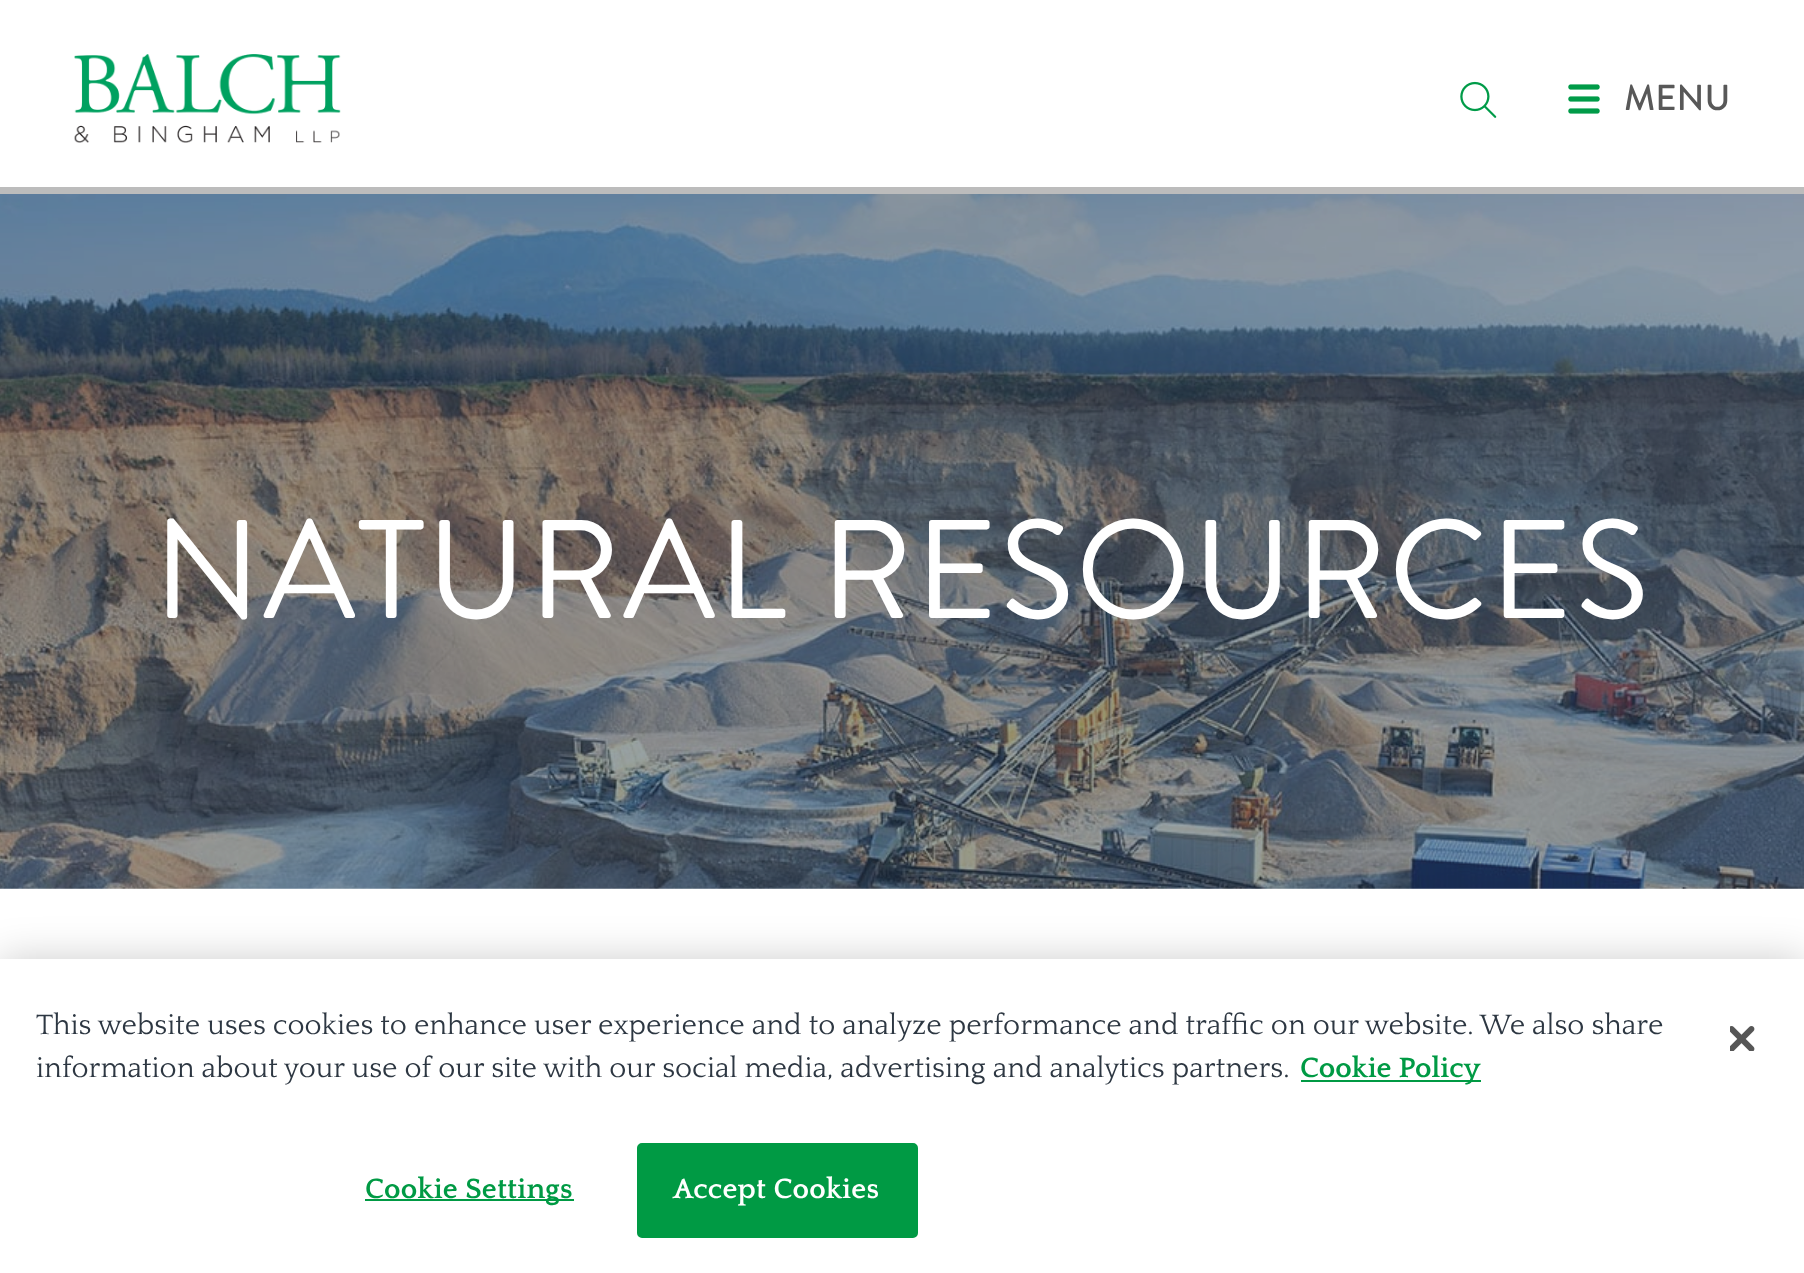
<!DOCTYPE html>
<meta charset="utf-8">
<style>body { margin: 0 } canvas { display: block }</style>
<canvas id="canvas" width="1804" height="1273"></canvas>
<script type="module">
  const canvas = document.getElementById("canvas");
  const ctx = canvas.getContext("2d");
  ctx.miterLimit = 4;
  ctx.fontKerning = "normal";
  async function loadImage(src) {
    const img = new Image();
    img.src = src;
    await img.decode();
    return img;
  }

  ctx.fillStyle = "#ffffff";
  ctx.fillRect(0, 0, 1804, 1273);
  ctx.drawImage(await loadImage("img1.png"), 74, 54, 267, 89);
  ctx.drawImage(await loadImage("img2.png"), 1460, 81, 37, 37);
  ctx.drawImage(await loadImage("img3.png"), 1568, 84, 32, 30);
  ctx.font = "500 36px Brandon Grotesque";
  ctx.fillStyle = "#585858";
  ctx.fillText("MENU", 1624, 110);
  ctx.fillStyle = "#bcbcbc";
  ctx.fillRect(0, 187, 1804, 7);
  ctx.drawImage(await loadImage("img4.png"), 0, 194, 1804, 695);
  ctx.letterSpacing = "1.75px";
  ctx.font = "140px Brandon Grotesque";
  ctx.fillStyle = "#ffffff";
  ctx.fillText("NATURAL RESOURCES", 153, 618);
  ctx.fillStyle = "rgba(0, 0, 0, 0.2)";
  ctx.filter = "blur(20px)";
  ctx.beginPath();
  ctx.rect(0, 959, 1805, 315);
  ctx.fill();
  ctx.filter = "none";
  ctx.fillStyle = "#ffffff";
  ctx.fillRect(0, 959, 1804, 314);
  ctx.letterSpacing = "0px";
  ctx.font = "29.27px Quattrocento";
  ctx.fillStyle = "#2d3742";
  ctx.fillText("This website uses cookies to enhance user experience and to analyze performance and traffic on our website. We also share", 36, 1034);
  ctx.fillText("information about your use of our site with our social media, advertising and analytics partners.", 36, 1077);
  ctx.fillStyle = "#009a44";
  ctx.fillRect(1301, 1080, 180, 2);
  ctx.font = "bold 29.27px Quattrocento";
  ctx.fillText("Cookie Policy", 1300, 1077);
  ctx.drawImage(await loadImage("img5.png"), 1730, 1026, 25, 25);
  ctx.fillRect(365, 1199, 209, 2);
  ctx.letterSpacing = "0.25px";
  ctx.fillText("Cookie Settings", 365, 1198);
  ctx.beginPath();
  ctx.roundRect(638, 1144, 279, 93, 4);
  ctx.fill();
  ctx.strokeStyle = "#009a44";
  ctx.lineWidth = 2;
  ctx.stroke();
  ctx.fillStyle = "#ffffff";
  ctx.fillText("Accept Cookies", 673, 1198);
</script>
